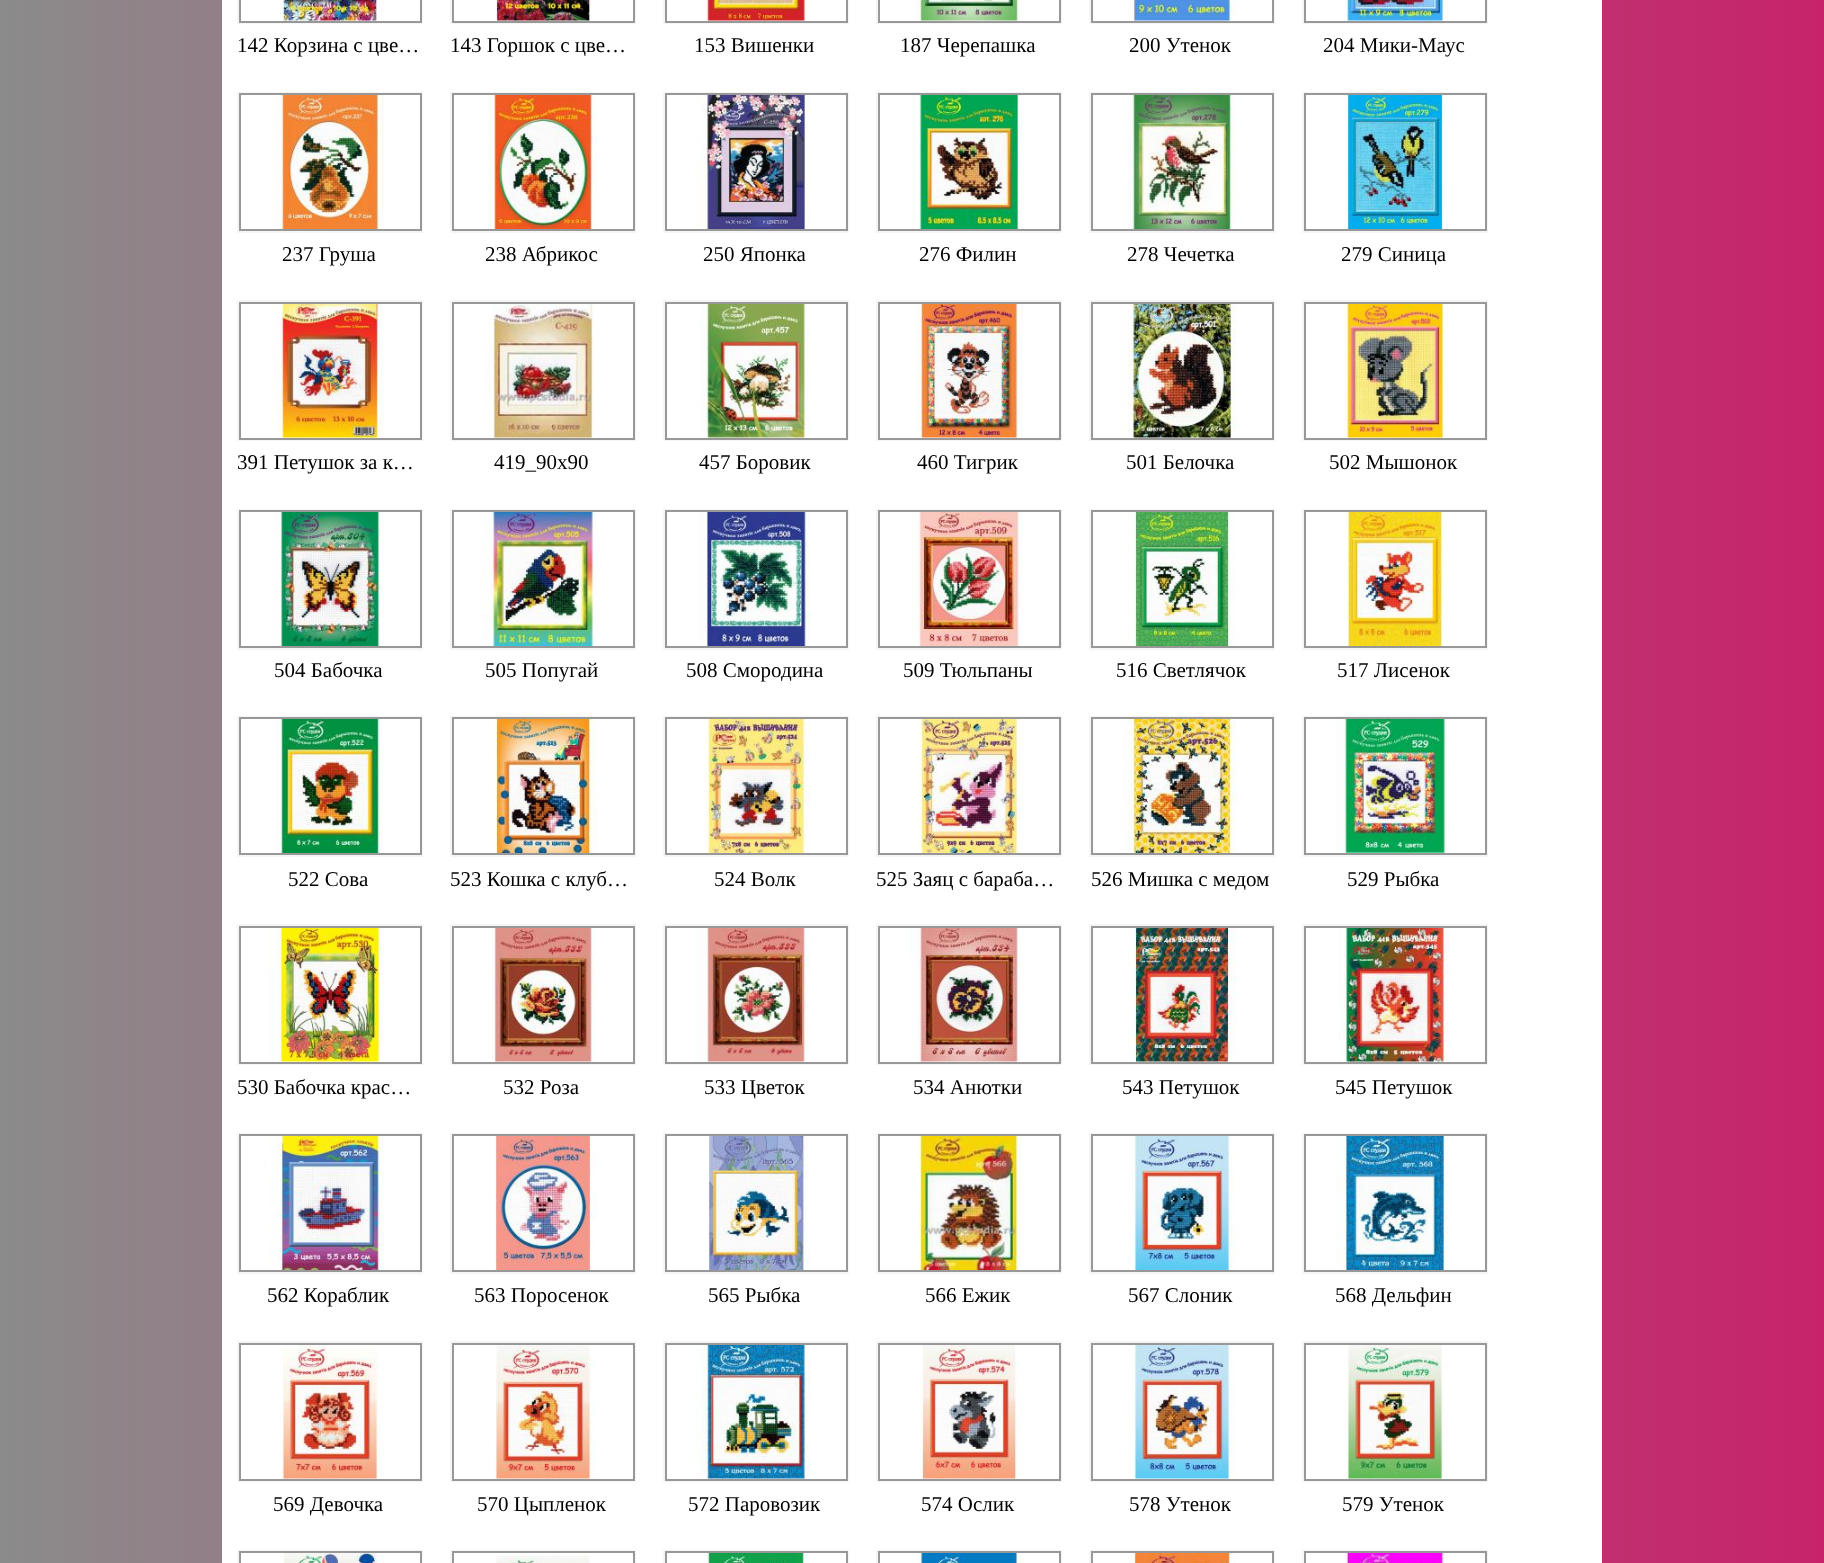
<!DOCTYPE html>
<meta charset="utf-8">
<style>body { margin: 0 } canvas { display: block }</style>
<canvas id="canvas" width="1824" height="1563"></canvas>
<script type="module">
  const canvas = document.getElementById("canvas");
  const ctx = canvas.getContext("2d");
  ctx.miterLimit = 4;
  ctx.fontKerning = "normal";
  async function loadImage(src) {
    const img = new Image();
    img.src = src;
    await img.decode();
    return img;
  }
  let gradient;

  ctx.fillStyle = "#ffffff";
  ctx.fillRect(0, 0, 1824, 1563);
  gradient = ctx.createLinearGradient(0, 782, 1824, 782);
  gradient.addColorStop(0, "#8b8b8b");
  gradient.addColorStop(1, "#c7236b");
  ctx.fillStyle = gradient;
  ctx.fillRect(0, 0, 1824, 1563);
  ctx.fillStyle = "#ffffff";
  ctx.fillRect(222, 0, 1380, 1563);
  ctx.strokeStyle = "#f5f5f5";
  ctx.lineWidth = 2;
  ctx.strokeRect(238, -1, 184, 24);
  ctx.drawImage(await loadImage("img1.png"), 282, 0, 102, 21);
  ctx.strokeStyle = "#989898";
  ctx.strokeRect(240, -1, 181, 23);
  ctx.font = "21px Liberation Serif";
  ctx.fillStyle = "#000000";
  ctx.fillText("142 Корзина с цве…", 237, 52);
  ctx.strokeStyle = "#f5f5f5";
  ctx.strokeRect(451, -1, 184, 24);
  ctx.drawImage(await loadImage("img2.png"), 495, 0, 98, 21);
  ctx.strokeStyle = "#989898";
  ctx.strokeRect(453, -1, 181, 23);
  ctx.fillText("143 Горшок с цве…", 450, 52);
  ctx.strokeStyle = "#f5f5f5";
  ctx.strokeRect(664, -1, 184, 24);
  ctx.drawImage(await loadImage("img3.png"), 701, 0, 109, 21);
  ctx.strokeStyle = "#989898";
  ctx.strokeRect(666, -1, 181, 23);
  ctx.fillText("153 Вишенки", 694, 52);
  ctx.strokeStyle = "#f5f5f5";
  ctx.strokeRect(877, -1, 184, 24);
  ctx.drawImage(await loadImage("img4.png"), 916, 0, 107, 21);
  ctx.strokeStyle = "#989898";
  ctx.strokeRect(879, -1, 181, 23);
  ctx.fillText("187 Черепашка", 900, 52);
  ctx.strokeStyle = "#f5f5f5";
  ctx.strokeRect(1090, -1, 184, 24);
  ctx.drawImage(await loadImage("img5.png"), 1128, 0, 108, 21);
  ctx.strokeStyle = "#989898";
  ctx.strokeRect(1092, -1, 181, 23);
  ctx.fillText("200 Утенок", 1129, 52);
  ctx.strokeStyle = "#f5f5f5";
  ctx.strokeRect(1303, -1, 184, 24);
  ctx.drawImage(await loadImage("img6.png"), 1345, 0, 104, 21);
  ctx.strokeStyle = "#989898";
  ctx.strokeRect(1305, -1, 181, 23);
  ctx.fillText("204 Мики-Маус", 1323, 52);
  ctx.strokeStyle = "#f5f5f5";
  ctx.strokeRect(238, 93, 184, 139);
  ctx.drawImage(await loadImage("img7.png"), 273, 95, 111, 134);
  ctx.strokeStyle = "#989898";
  ctx.strokeRect(240, 94, 181, 136);
  ctx.fillText("237 Груша", 282, 261);
  ctx.strokeStyle = "#f5f5f5";
  ctx.strokeRect(451, 93, 184, 139);
  ctx.drawImage(await loadImage("img8.png"), 488, 95, 109, 134);
  ctx.strokeStyle = "#989898";
  ctx.strokeRect(453, 94, 181, 136);
  ctx.fillText("238 Абрикос", 485, 261);
  ctx.strokeStyle = "#f5f5f5";
  ctx.strokeRect(664, 93, 184, 139);
  ctx.drawImage(await loadImage("img9.png"), 697, 95, 114, 134);
  ctx.strokeStyle = "#989898";
  ctx.strokeRect(666, 94, 181, 136);
  ctx.fillText("250 Японка", 703, 261);
  ctx.strokeStyle = "#f5f5f5";
  ctx.strokeRect(877, 93, 184, 139);
  ctx.drawImage(await loadImage("img10.png"), 912, 95, 111, 134);
  ctx.strokeStyle = "#989898";
  ctx.strokeRect(879, 94, 181, 136);
  ctx.fillText("276 Филин", 919, 261);
  ctx.strokeStyle = "#f5f5f5";
  ctx.strokeRect(1090, 93, 184, 139);
  ctx.drawImage(await loadImage("img11.png"), 1124, 95, 112, 134);
  ctx.strokeStyle = "#989898";
  ctx.strokeRect(1092, 94, 181, 136);
  ctx.fillText("278 Чечетка", 1127, 261);
  ctx.strokeStyle = "#f5f5f5";
  ctx.strokeRect(1303, 93, 184, 139);
  ctx.drawImage(await loadImage("img12.png"), 1347, 95, 102, 134);
  ctx.strokeStyle = "#989898";
  ctx.strokeRect(1305, 94, 181, 136);
  ctx.fillText("279 Синица", 1341, 261);
  ctx.strokeStyle = "#f5f5f5";
  ctx.strokeRect(238, 301, 184, 139);
  ctx.drawImage(await loadImage("img13.png"), 272, 304, 113, 134);
  ctx.strokeStyle = "#989898";
  ctx.strokeRect(240, 303, 181, 136);
  ctx.fillText("391 Петушок за к…", 237, 469);
  ctx.strokeStyle = "#f5f5f5";
  ctx.strokeRect(451, 301, 184, 139);
  ctx.drawImage(await loadImage("img14.png"), 451, 302, 182, 136);
  ctx.strokeStyle = "#989898";
  ctx.strokeRect(453, 303, 181, 136);
  ctx.fillText("419_90x90", 494, 469);
  ctx.strokeStyle = "#f5f5f5";
  ctx.strokeRect(664, 301, 184, 139);
  ctx.drawImage(await loadImage("img15.png"), 699, 304, 111, 134);
  ctx.strokeStyle = "#989898";
  ctx.strokeRect(666, 303, 181, 136);
  ctx.fillText("457 Боровик", 699, 469);
  ctx.strokeStyle = "#f5f5f5";
  ctx.strokeRect(877, 301, 184, 139);
  ctx.drawImage(await loadImage("img16.png"), 916, 304, 107, 134);
  ctx.strokeStyle = "#989898";
  ctx.strokeRect(879, 303, 181, 136);
  ctx.fillText("460 Тигрик", 917, 469);
  ctx.strokeStyle = "#f5f5f5";
  ctx.strokeRect(1090, 301, 184, 139);
  ctx.drawImage(await loadImage("img17.png"), 1121, 304, 116, 134);
  ctx.strokeStyle = "#989898";
  ctx.strokeRect(1092, 303, 181, 136);
  ctx.fillText("501 Белочка", 1126, 469);
  ctx.strokeStyle = "#f5f5f5";
  ctx.strokeRect(1303, 301, 184, 139);
  ctx.drawImage(await loadImage("img18.png"), 1344, 304, 106, 134);
  ctx.strokeStyle = "#989898";
  ctx.strokeRect(1305, 303, 181, 136);
  ctx.fillText("502 Мышонок", 1329, 469);
  ctx.strokeStyle = "#f5f5f5";
  ctx.strokeRect(238, 510, 184, 139);
  ctx.drawImage(await loadImage("img19.png"), 273, 512, 111, 134);
  ctx.strokeStyle = "#989898";
  ctx.strokeRect(240, 511, 181, 136);
  ctx.fillText("504 Бабочка", 274, 677);
  ctx.strokeStyle = "#f5f5f5";
  ctx.strokeRect(451, 510, 184, 139);
  ctx.drawImage(await loadImage("img20.png"), 481, 512, 117, 134);
  ctx.strokeStyle = "#989898";
  ctx.strokeRect(453, 511, 181, 136);
  ctx.fillText("505 Попугай", 485, 677);
  ctx.strokeStyle = "#f5f5f5";
  ctx.strokeRect(664, 510, 184, 139);
  ctx.drawImage(await loadImage("img21.png"), 699, 512, 112, 134);
  ctx.strokeStyle = "#989898";
  ctx.strokeRect(666, 511, 181, 136);
  ctx.fillText("508 Смородина", 686, 677);
  ctx.strokeStyle = "#f5f5f5";
  ctx.strokeRect(877, 510, 184, 139);
  ctx.drawImage(await loadImage("img22.png"), 911, 512, 112, 134);
  ctx.strokeStyle = "#989898";
  ctx.strokeRect(879, 511, 181, 136);
  ctx.fillText("509 Тюльпаны", 903, 677);
  ctx.strokeStyle = "#f5f5f5";
  ctx.strokeRect(1090, 510, 184, 139);
  ctx.drawImage(await loadImage("img23.png"), 1134, 512, 102, 134);
  ctx.strokeStyle = "#989898";
  ctx.strokeRect(1092, 511, 181, 136);
  ctx.fillText("516 Светлячок", 1116, 677);
  ctx.strokeStyle = "#f5f5f5";
  ctx.strokeRect(1303, 510, 184, 139);
  ctx.drawImage(await loadImage("img24.png"), 1347, 512, 102, 134);
  ctx.strokeStyle = "#989898";
  ctx.strokeRect(1305, 511, 181, 136);
  ctx.fillText("517 Лисенок", 1337, 677);
  ctx.strokeStyle = "#f5f5f5";
  ctx.strokeRect(238, 717, 184, 139);
  ctx.drawImage(await loadImage("img25.png"), 276, 719, 108, 134);
  ctx.strokeStyle = "#989898";
  ctx.strokeRect(240, 718, 181, 136);
  ctx.fillText("522 Сова", 288, 886);
  ctx.strokeStyle = "#f5f5f5";
  ctx.strokeRect(451, 717, 184, 139);
  ctx.drawImage(await loadImage("img26.png"), 495, 719, 102, 134);
  ctx.strokeStyle = "#989898";
  ctx.strokeRect(453, 718, 181, 136);
  ctx.fillText("523 Кошка с клуб…", 450, 886);
  ctx.strokeStyle = "#f5f5f5";
  ctx.strokeRect(664, 717, 184, 139);
  ctx.drawImage(await loadImage("img27.png"), 705, 719, 106, 134);
  ctx.strokeStyle = "#989898";
  ctx.strokeRect(666, 718, 181, 136);
  ctx.fillText("524 Волк", 714, 886);
  ctx.strokeStyle = "#f5f5f5";
  ctx.strokeRect(877, 717, 184, 139);
  ctx.drawImage(await loadImage("img28.png"), 918, 719, 106, 134);
  ctx.strokeStyle = "#989898";
  ctx.strokeRect(879, 718, 181, 136);
  ctx.fillText("525 Заяц с бараба…", 876, 886);
  ctx.strokeStyle = "#f5f5f5";
  ctx.strokeRect(1090, 717, 184, 139);
  ctx.drawImage(await loadImage("img29.png"), 1122, 719, 115, 134);
  ctx.strokeStyle = "#989898";
  ctx.strokeRect(1092, 718, 181, 136);
  ctx.fillText("526 Мишка с медом", 1091, 886);
  ctx.strokeStyle = "#f5f5f5";
  ctx.strokeRect(1303, 717, 184, 139);
  ctx.drawImage(await loadImage("img30.png"), 1336, 719, 113, 134);
  ctx.strokeStyle = "#989898";
  ctx.strokeRect(1305, 718, 181, 136);
  ctx.fillText("529 Рыбка", 1347, 886);
  ctx.strokeStyle = "#f5f5f5";
  ctx.strokeRect(238, 925, 184, 139);
  ctx.drawImage(await loadImage("img31.png"), 269, 928, 116, 134);
  ctx.strokeStyle = "#989898";
  ctx.strokeRect(240, 927, 181, 136);
  ctx.fillText("530 Бабочка крас…", 237, 1094);
  ctx.strokeStyle = "#f5f5f5";
  ctx.strokeRect(451, 925, 184, 139);
  ctx.drawImage(await loadImage("img32.png"), 492, 928, 105, 134);
  ctx.strokeStyle = "#989898";
  ctx.strokeRect(453, 927, 181, 136);
  ctx.fillText("532 Роза", 503, 1094);
  ctx.strokeStyle = "#f5f5f5";
  ctx.strokeRect(664, 925, 184, 139);
  ctx.drawImage(await loadImage("img33.png"), 695, 928, 115, 134);
  ctx.strokeStyle = "#989898";
  ctx.strokeRect(666, 927, 181, 136);
  ctx.fillText("533 Цветок", 704, 1094);
  ctx.strokeStyle = "#f5f5f5";
  ctx.strokeRect(877, 925, 184, 139);
  ctx.drawImage(await loadImage("img34.png"), 910, 928, 113, 134);
  ctx.strokeStyle = "#989898";
  ctx.strokeRect(879, 927, 181, 136);
  ctx.fillText("534 Анютки", 913, 1094);
  ctx.strokeStyle = "#f5f5f5";
  ctx.strokeRect(1090, 925, 184, 139);
  ctx.drawImage(await loadImage("img35.png"), 1134, 928, 103, 134);
  ctx.strokeStyle = "#989898";
  ctx.strokeRect(1092, 927, 181, 136);
  ctx.fillText("543 Петушок", 1122, 1094);
  ctx.strokeStyle = "#f5f5f5";
  ctx.strokeRect(1303, 925, 184, 139);
  ctx.drawImage(await loadImage("img36.png"), 1338, 928, 112, 134);
  ctx.strokeStyle = "#989898";
  ctx.strokeRect(1305, 927, 181, 136);
  ctx.fillText("545 Петушок", 1335, 1094);
  ctx.strokeStyle = "#f5f5f5";
  ctx.strokeRect(238, 1134, 184, 139);
  ctx.drawImage(await loadImage("img37.png"), 269, 1136, 116, 134);
  ctx.strokeStyle = "#989898";
  ctx.strokeRect(240, 1135, 181, 136);
  ctx.fillText("562 Кораблик", 267, 1302);
  ctx.strokeStyle = "#f5f5f5";
  ctx.strokeRect(451, 1134, 184, 139);
  ctx.drawImage(await loadImage("img38.png"), 495, 1136, 102, 134);
  ctx.strokeStyle = "#989898";
  ctx.strokeRect(453, 1135, 181, 136);
  ctx.fillText("563 Поросенок", 474, 1302);
  ctx.strokeStyle = "#f5f5f5";
  ctx.strokeRect(664, 1134, 184, 139);
  ctx.drawImage(await loadImage("img39.png"), 708, 1136, 102, 134);
  ctx.strokeStyle = "#989898";
  ctx.strokeRect(666, 1135, 181, 136);
  ctx.fillText("565 Рыбка", 708, 1302);
  ctx.strokeStyle = "#f5f5f5";
  ctx.strokeRect(877, 1134, 184, 139);
  ctx.drawImage(await loadImage("img40.png"), 877, 1135, 182, 135);
  ctx.strokeStyle = "#989898";
  ctx.strokeRect(879, 1135, 181, 136);
  ctx.fillText("566 Ежик", 925, 1302);
  ctx.strokeStyle = "#f5f5f5";
  ctx.strokeRect(1090, 1134, 184, 139);
  ctx.drawImage(await loadImage("img41.png"), 1134, 1136, 102, 134);
  ctx.strokeStyle = "#989898";
  ctx.strokeRect(1092, 1135, 181, 136);
  ctx.fillText("567 Слоник", 1128, 1302);
  ctx.strokeStyle = "#f5f5f5";
  ctx.strokeRect(1303, 1134, 184, 139);
  ctx.drawImage(await loadImage("img42.png"), 1336, 1136, 113, 134);
  ctx.strokeStyle = "#989898";
  ctx.strokeRect(1305, 1135, 181, 136);
  ctx.fillText("568 Дельфин", 1335, 1302);
  ctx.strokeStyle = "#f5f5f5";
  ctx.strokeRect(238, 1342, 184, 139);
  ctx.drawImage(await loadImage("img43.png"), 282, 1345, 102, 134);
  ctx.strokeStyle = "#989898";
  ctx.strokeRect(240, 1344, 181, 136);
  ctx.fillText("569 Девочка", 273, 1511);
  ctx.strokeStyle = "#f5f5f5";
  ctx.strokeRect(451, 1342, 184, 139);
  ctx.drawImage(await loadImage("img44.png"), 495, 1345, 102, 134);
  ctx.strokeStyle = "#989898";
  ctx.strokeRect(453, 1344, 181, 136);
  ctx.fillText("570 Цыпленок", 477, 1511);
  ctx.strokeStyle = "#f5f5f5";
  ctx.strokeRect(664, 1342, 184, 139);
  ctx.drawImage(await loadImage("img45.png"), 694, 1345, 117, 134);
  ctx.strokeStyle = "#989898";
  ctx.strokeRect(666, 1344, 181, 136);
  ctx.fillText("572 Паровозик", 688, 1511);
  ctx.strokeStyle = "#f5f5f5";
  ctx.strokeRect(877, 1342, 184, 139);
  ctx.drawImage(await loadImage("img46.png"), 921, 1345, 102, 134);
  ctx.strokeStyle = "#989898";
  ctx.strokeRect(879, 1344, 181, 136);
  ctx.fillText("574 Ослик", 921, 1511);
  ctx.strokeStyle = "#f5f5f5";
  ctx.strokeRect(1090, 1342, 184, 139);
  ctx.drawImage(await loadImage("img47.png"), 1134, 1345, 102, 134);
  ctx.strokeStyle = "#989898";
  ctx.strokeRect(1092, 1344, 181, 136);
  ctx.fillText("578 Утенок", 1129, 1511);
  ctx.strokeStyle = "#f5f5f5";
  ctx.strokeRect(1303, 1342, 184, 139);
  ctx.drawImage(await loadImage("img48.png"), 1347, 1345, 102, 134);
  ctx.strokeStyle = "#989898";
  ctx.strokeRect(1305, 1344, 181, 136);
  ctx.fillText("579 Утенок", 1342, 1511);
  ctx.strokeStyle = "#f5f5f5";
  ctx.strokeRect(238, 1551, 184, 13);
  ctx.drawImage(await loadImage("img49.png"), 283, 1553, 101, 10);
  ctx.strokeStyle = "#989898";
  ctx.strokeRect(240, 1552, 181, 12);
  ctx.strokeStyle = "#f5f5f5";
  ctx.strokeRect(451, 1551, 184, 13);
  ctx.drawImage(await loadImage("img50.png"), 496, 1553, 94, 10);
  ctx.strokeStyle = "#989898";
  ctx.strokeRect(453, 1552, 181, 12);
  ctx.strokeStyle = "#f5f5f5";
  ctx.strokeRect(664, 1551, 184, 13);
  ctx.drawImage(await loadImage("img51.png"), 706, 1553, 101, 10);
  ctx.strokeStyle = "#989898";
  ctx.strokeRect(666, 1552, 181, 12);
  ctx.strokeStyle = "#f5f5f5";
  ctx.strokeRect(877, 1551, 184, 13);
  ctx.drawImage(await loadImage("img52.png"), 916, 1553, 107, 10);
  ctx.strokeStyle = "#989898";
  ctx.strokeRect(879, 1552, 181, 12);
  ctx.strokeStyle = "#f5f5f5";
  ctx.strokeRect(1090, 1551, 184, 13);
  ctx.drawImage(await loadImage("img53.png"), 1134, 1553, 102, 10);
  ctx.strokeStyle = "#989898";
  ctx.strokeRect(1092, 1552, 181, 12);
  ctx.strokeStyle = "#f5f5f5";
  ctx.strokeRect(1303, 1551, 184, 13);
  ctx.drawImage(await loadImage("img54.png"), 1303, 1552, 182, 11);
  ctx.strokeStyle = "#989898";
  ctx.strokeRect(1305, 1552, 181, 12);
</script>
